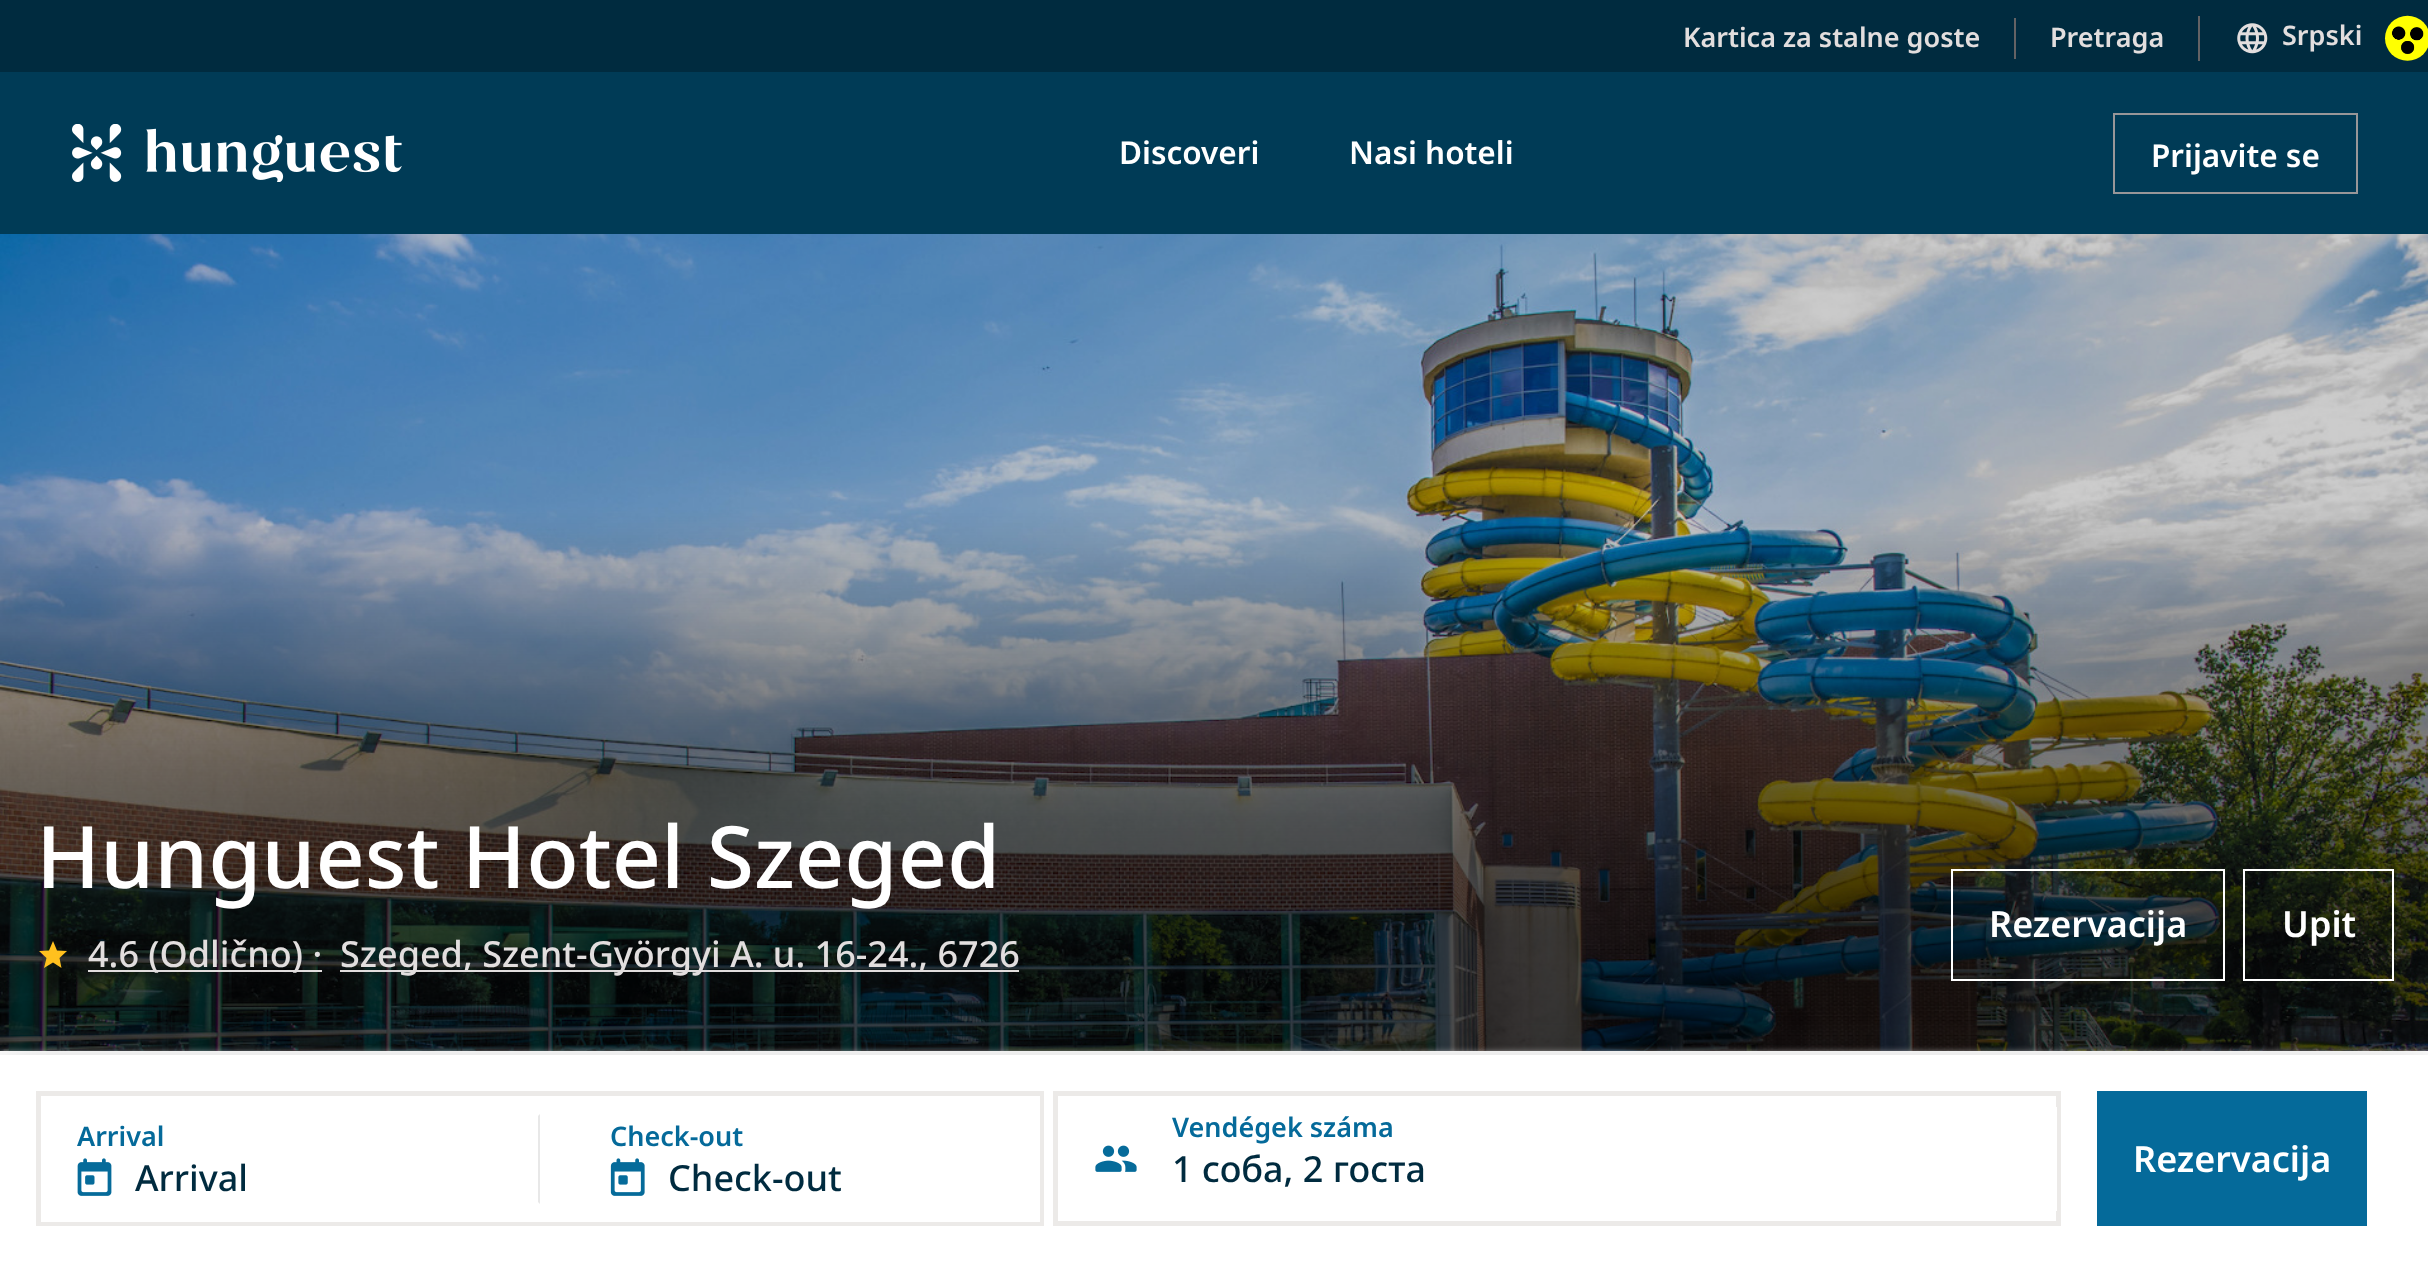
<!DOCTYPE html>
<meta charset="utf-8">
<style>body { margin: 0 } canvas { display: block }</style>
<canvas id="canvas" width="2428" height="1262"></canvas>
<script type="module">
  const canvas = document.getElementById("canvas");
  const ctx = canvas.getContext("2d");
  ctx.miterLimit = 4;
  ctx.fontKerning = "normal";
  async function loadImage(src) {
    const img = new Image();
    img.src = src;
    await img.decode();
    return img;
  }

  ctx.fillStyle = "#ffffff";
  ctx.fillRect(0, 0, 2428, 1262);
  ctx.fillStyle = "#002b3f";
  ctx.fillRect(0, 0, 2428, 72);
  ctx.font = "600 27px Noto Sans";
  ctx.fillStyle = "#e2dede";
  ctx.fillText("Kartica za stalne goste", 1683, 47);
  ctx.fillStyle = "#646264";
  ctx.fillRect(2014, 18, 2, 41);
  ctx.fillStyle = "#e2dede";
  ctx.fillText("Pretraga", 2050, 47);
  ctx.fillStyle = "#646264";
  ctx.fillRect(2198, 16, 2, 45);
  ctx.drawImage(await loadImage("img1.png"), 2237, 23, 31, 31);
  ctx.fillStyle = "#e2dede";
  ctx.fillText("Srpski", 2282, 45);
  ctx.drawImage(await loadImage("img2.png"), 2384, 15, 44, 46);
  ctx.fillStyle = "#003b56";
  ctx.fillRect(0, 72, 2428, 162);
  ctx.drawImage(await loadImage("img3.png"), 72, 124, 330, 58);
  ctx.font = "600 31.5px Noto Sans";
  ctx.fillStyle = "#ffffff";
  ctx.fillText("Discoveri", 1119, 164);
  ctx.fillText("Nasi hoteli", 1349, 164);
  ctx.strokeStyle = "#989698";
  ctx.lineWidth = 2;
  ctx.strokeRect(2114, 114, 243, 79);
  ctx.fillText("Prijavite se", 2151, 167);
  ctx.drawImage(await loadImage("img4.png"), 0, 234, 2428, 817);
  ctx.font = "500 86px Noto Sans";
  ctx.fillText("Hunguest Hotel Szeged", 36, 888);
  ctx.fillStyle = "#ffc01e";
  ctx.beginPath();
  ctx.moveTo(53, 962.5);
  ctx.lineTo(61.5, 968);
  ctx.lineTo(59.5, 958);
  ctx.lineTo(67, 951);
  ctx.lineTo(57, 950.5);
  ctx.lineTo(53, 941);
  ctx.lineTo(49, 950.5);
  ctx.lineTo(39, 951);
  ctx.lineTo(46.5, 958);
  ctx.lineTo(44, 968);
  ctx.closePath();
  ctx.fill();
  ctx.fillStyle = "#e2dede";
  ctx.fillRect(88, 970, 234, 2);
  ctx.font = "500 36px Noto Sans";
  ctx.fillText("4.6 (Odlično) ·", 88, 967);
  ctx.fillRect(340, 970, 679, 2);
  ctx.fillText("Szeged, Szent-Györgyi A. u. 16-24., 6726", 340, 967);
  ctx.strokeStyle = "#ffffff";
  ctx.strokeRect(1952, 870, 272, 110);
  ctx.font = "600 36px Noto Sans";
  ctx.fillStyle = "#ffffff";
  ctx.fillText("Rezervacija", 1989, 937);
  ctx.strokeRect(2244, 870, 149, 110);
  ctx.fillText("Upit", 2282, 937);
  ctx.fillStyle = "#e2dede";
  ctx.filter = "blur(3.5px)";
  ctx.beginPath();
  ctx.rect(0, 1053, 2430, 128);
  ctx.fill();
  ctx.filter = "none";
  ctx.fillStyle = "#ffffff";
  ctx.fillRect(0, 1051, 2428, 4);
  ctx.fillStyle = "rgba(22, 22, 22, 0.16)";
  ctx.filter = "blur(27px)";
  ctx.beginPath();
  ctx.rect(0, 1055, 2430, 207);
  ctx.fill();
  ctx.filter = "none";
  ctx.fillStyle = "#ffffff";
  ctx.fillRect(0, 1055, 2428, 207);
  ctx.strokeStyle = "#eceae8";
  ctx.lineWidth = 5;
  ctx.strokeRect(38.5, 1093.5, 1003, 130);
  ctx.fillRect(41, 1096, 999, 126);
  ctx.fillStyle = "#e8e8e8";
  ctx.beginPath();
  ctx.moveTo(540, 1204);
  ctx.lineTo(540, 1114);
  ctx.lineTo(538, 1116);
  ctx.lineTo(538, 1202);
  ctx.closePath();
  ctx.fill();
  ctx.font = "600 27px Noto Sans";
  ctx.fillStyle = "#056a9a";
  ctx.fillText("Arrival", 77, 1146);
  ctx.drawImage(await loadImage("img5.png"), 77, 1158, 35, 38);
  ctx.font = "500 36px Noto Sans";
  ctx.fillStyle = "#002b3f";
  ctx.fillText("Arrival", 135, 1191);
  ctx.font = "600 27px Noto Sans";
  ctx.fillStyle = "#056a9a";
  ctx.fillText("Check-out", 610, 1146);
  ctx.drawImage(await loadImage("img6.png"), 610, 1158, 35, 38);
  ctx.font = "500 36px Noto Sans";
  ctx.fillStyle = "#002b3f";
  ctx.fillText("Check-out", 668, 1191);
  ctx.strokeRect(1055.5, 1093.5, 1003, 130);
  ctx.fillStyle = "#ffffff";
  ctx.fillRect(2056, 1107, 1, 104);
  ctx.drawImage(await loadImage("img7.png"), 1095, 1145, 42, 27);
  ctx.font = "600 27px Noto Sans";
  ctx.fillStyle = "#056a9a";
  ctx.fillText("Vendégek száma", 1172, 1137);
  ctx.font = "500 36px Noto Sans";
  ctx.fillStyle = "#002b3f";
  ctx.fillText("1 соба, 2 госта", 1172, 1182);
  ctx.fillStyle = "#056a9a";
  ctx.fillRect(2097, 1091, 270, 135);
  ctx.font = "600 36px Noto Sans";
  ctx.fillStyle = "#ffffff";
  ctx.fillText("Rezervacija", 2133, 1172);
</script>
